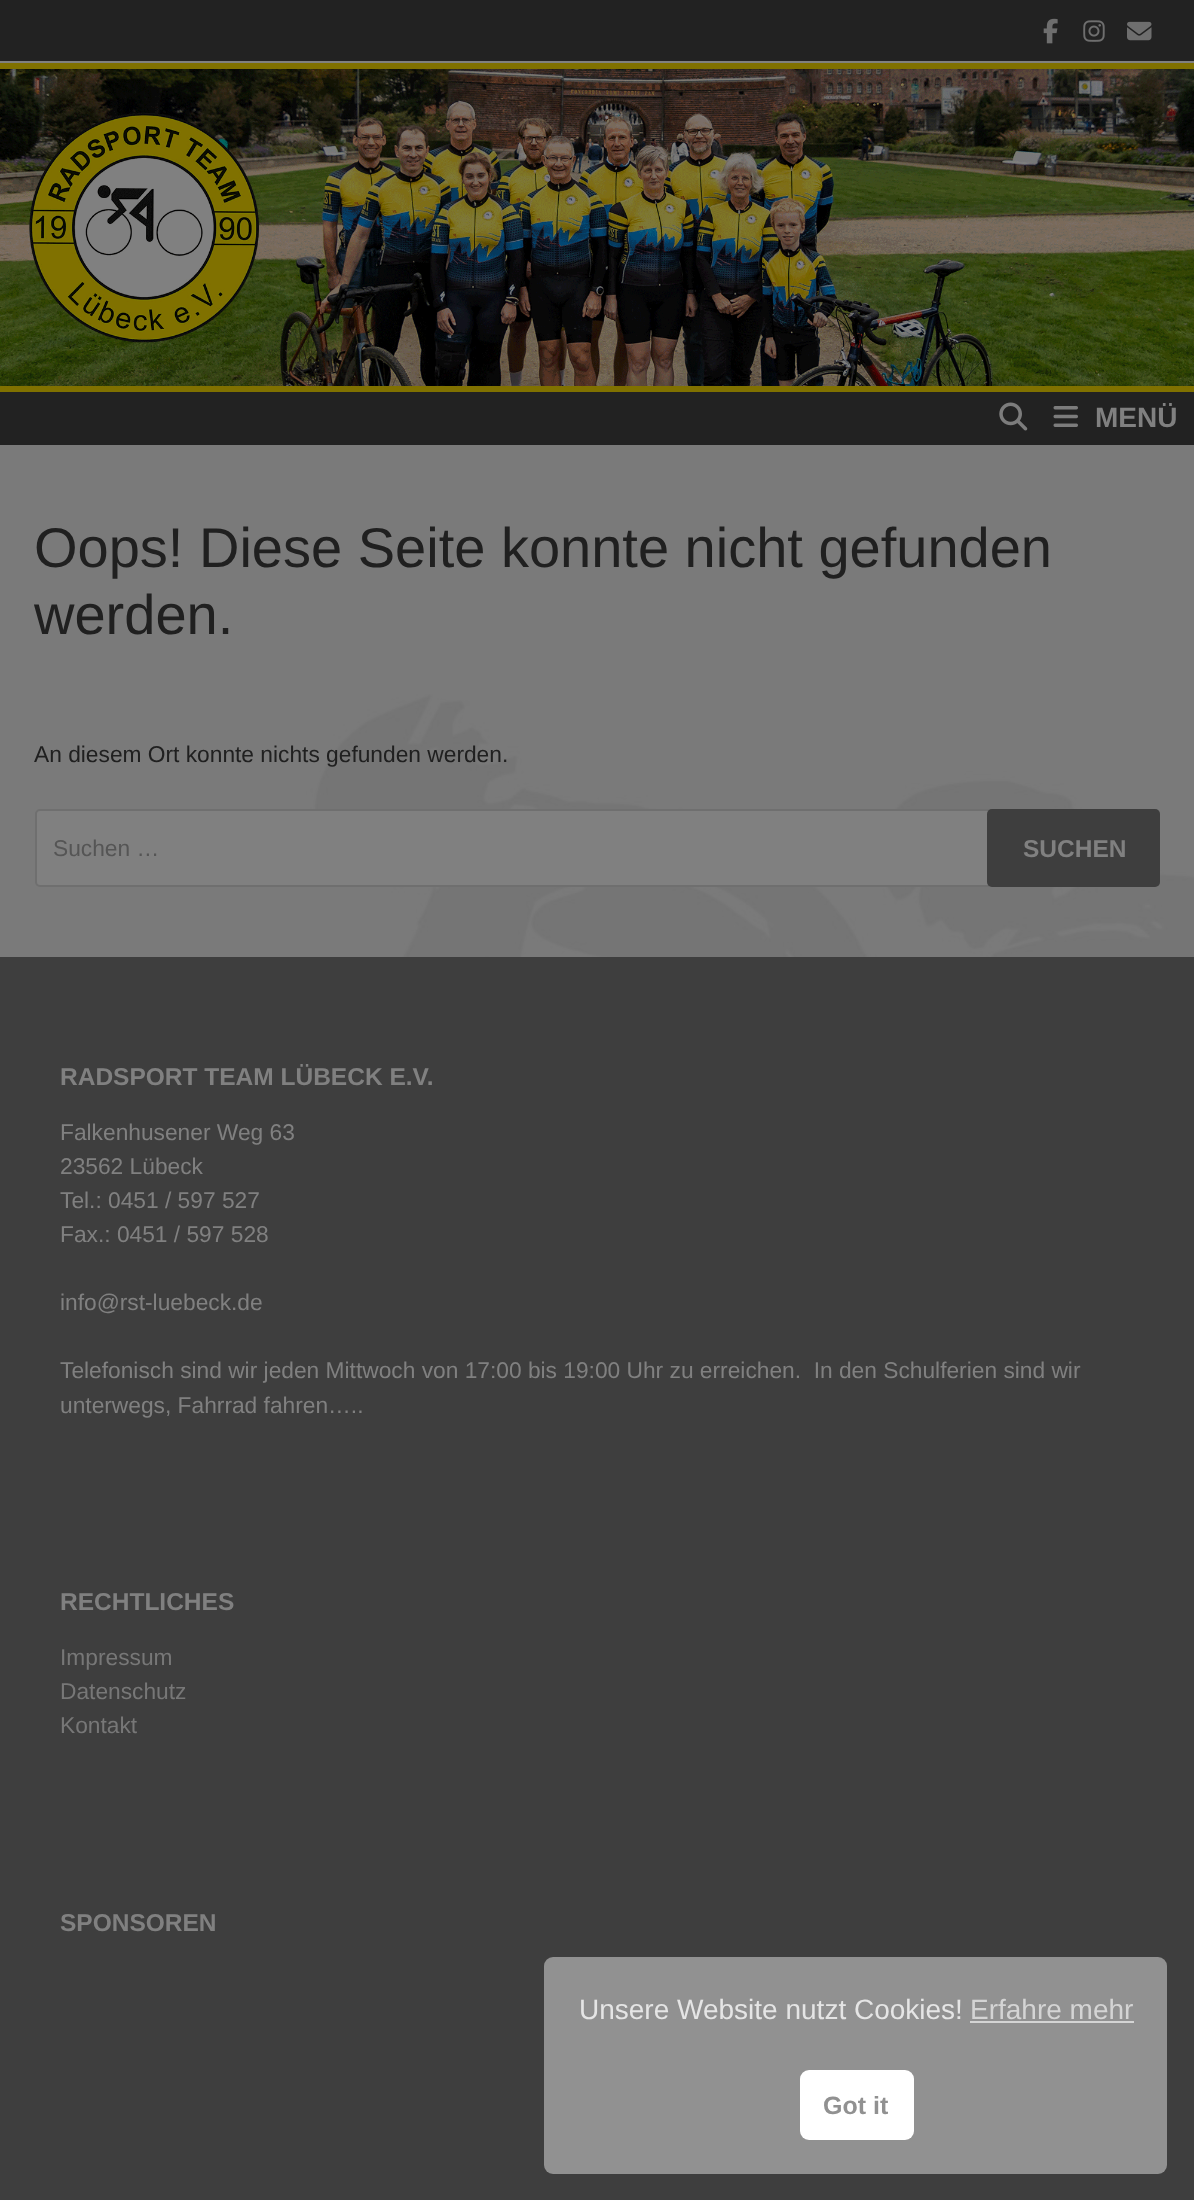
<!DOCTYPE html>
<meta charset="utf-8">
<style>body { margin: 0 } canvas { display: block }</style>
<canvas id="canvas" width="1194" height="2200"></canvas>
<script type="module">
  const canvas = document.getElementById("canvas");
  const ctx = canvas.getContext("2d");
  ctx.miterLimit = 4;
  ctx.fontKerning = "normal";
  async function loadImage(src) {
    const img = new Image();
    img.src = src;
    await img.decode();
    return img;
  }

  ctx.fillStyle = "#808080";
  ctx.fillRect(0, 0, 1194, 2200);
  ctx.drawImage(await loadImage("img1.png"), 0, 694, 1194, 263);
  ctx.fillStyle = "#222222";
  ctx.fillRect(0, 0, 1194, 61);
  ctx.drawImage(await loadImage("img2.png"), 1043, 18, 15, 26);
  ctx.drawImage(await loadImage("img3.png"), 1083, 20, 22, 22);
  ctx.drawImage(await loadImage("img4.png"), 1127, 21, 25, 20);
  ctx.drawImage(await loadImage("img5.png"), 0, 63, 1194, 329);
  ctx.fillRect(0, 392, 1194, 53);
  ctx.drawImage(await loadImage("img6.png"), 999, 402, 29, 29);
  ctx.drawImage(await loadImage("img7.png"), 1053, 406, 25, 21);
  ctx.font = "bold 28px Liberation Sans";
  ctx.fillStyle = "#808080";
  ctx.fillText("MENÜ", 1095, 427);
  ctx.fillStyle = "rgba(119, 119, 119, 0.63)";
  ctx.fillRect(0, 445, 1194, 512);
  ctx.font = "56px Liberation Sans";
  ctx.fillStyle = "#202020";
  ctx.fillText("Oops! Diese Seite konnte nicht gefunden", 34, 567);
  ctx.fillText("werden.", 34, 634);
  ctx.font = "22.75px Liberation Sans";
  ctx.fillText("An diesem Ort konnte nichts gefunden werden.", 34, 762);
  ctx.fillStyle = "#808080";
  ctx.beginPath();
  ctx.roundRect(36, 810, 1123, 76, 4);
  ctx.fill();
  ctx.strokeStyle = "#6f6f6f";
  ctx.lineWidth = 2;
  ctx.stroke();
  ctx.fillStyle = "#555555";
  ctx.fillText("Suchen …", 53, 856);
  ctx.fillStyle = "#3e3e3e";
  ctx.beginPath();
  ctx.roundRect(987, 809, 173, 78, 5);
  ctx.fill();
  ctx.font = "bold 24.5px Liberation Sans";
  ctx.fillStyle = "#808080";
  ctx.fillText("SUCHEN", 1023, 857);
  ctx.fillStyle = "#3e3e3e";
  ctx.fillRect(0, 957, 1194, 1243);
  ctx.fillStyle = "#808080";
  ctx.fillText("RADSPORT TEAM LÜBECK E.V.", 60, 1085);
  ctx.font = "22.75px Liberation Sans";
  ctx.fillText("Falkenhusener Weg 63", 60, 1140);
  ctx.fillText("23562 Lübeck", 60, 1174);
  ctx.fillText("Tel.: 0451 / 597 527", 60, 1208);
  ctx.fillText("Fax.: 0451 / 597 528", 60, 1242);
  ctx.fillText("info@rst-luebeck.de", 60, 1310);
  ctx.fillText("Telefonisch sind wir jeden Mittwoch von 17:00 bis 19:00 Uhr zu erreichen.  In den Schulferien sind wir", 60, 1378);
  ctx.fillText("unterwegs, Fahrrad fahren…..", 60, 1413);
  ctx.font = "bold 24.5px Liberation Sans";
  ctx.fillText("RECHTLICHES", 60, 1610);
  ctx.font = "22.75px Liberation Sans";
  ctx.fillStyle = "#777777";
  ctx.fillText("Impressum", 60, 1665);
  ctx.fillText("Datenschutz", 60, 1699);
  ctx.fillText("Kontakt", 60, 1733);
  ctx.font = "bold 24.5px Liberation Sans";
  ctx.fillStyle = "#808080";
  ctx.fillText("SPONSOREN", 60, 1931);
  ctx.fillStyle = "#919191";
  ctx.beginPath();
  ctx.roundRect(544, 1957, 623, 217, 9);
  ctx.fill();
  ctx.font = "28px Liberation Sans";
  ctx.fillStyle = "#e5e5e5";
  ctx.fillText("Unsere Website nutzt Cookies!", 579, 2019);
  ctx.fillStyle = "#d4d4d4";
  ctx.fillText("Erfahre mehr", 970, 2019);
  ctx.fillRect(970, 2021, 164, 2);
  ctx.fillStyle = "#ffffff";
  ctx.beginPath();
  ctx.roundRect(800, 2070, 114, 70, 9);
  ctx.fill();
  ctx.font = "bold 25px Liberation Sans";
  ctx.fillStyle = "#919191";
  ctx.fillText("Got it", 823, 2114);
</script>
